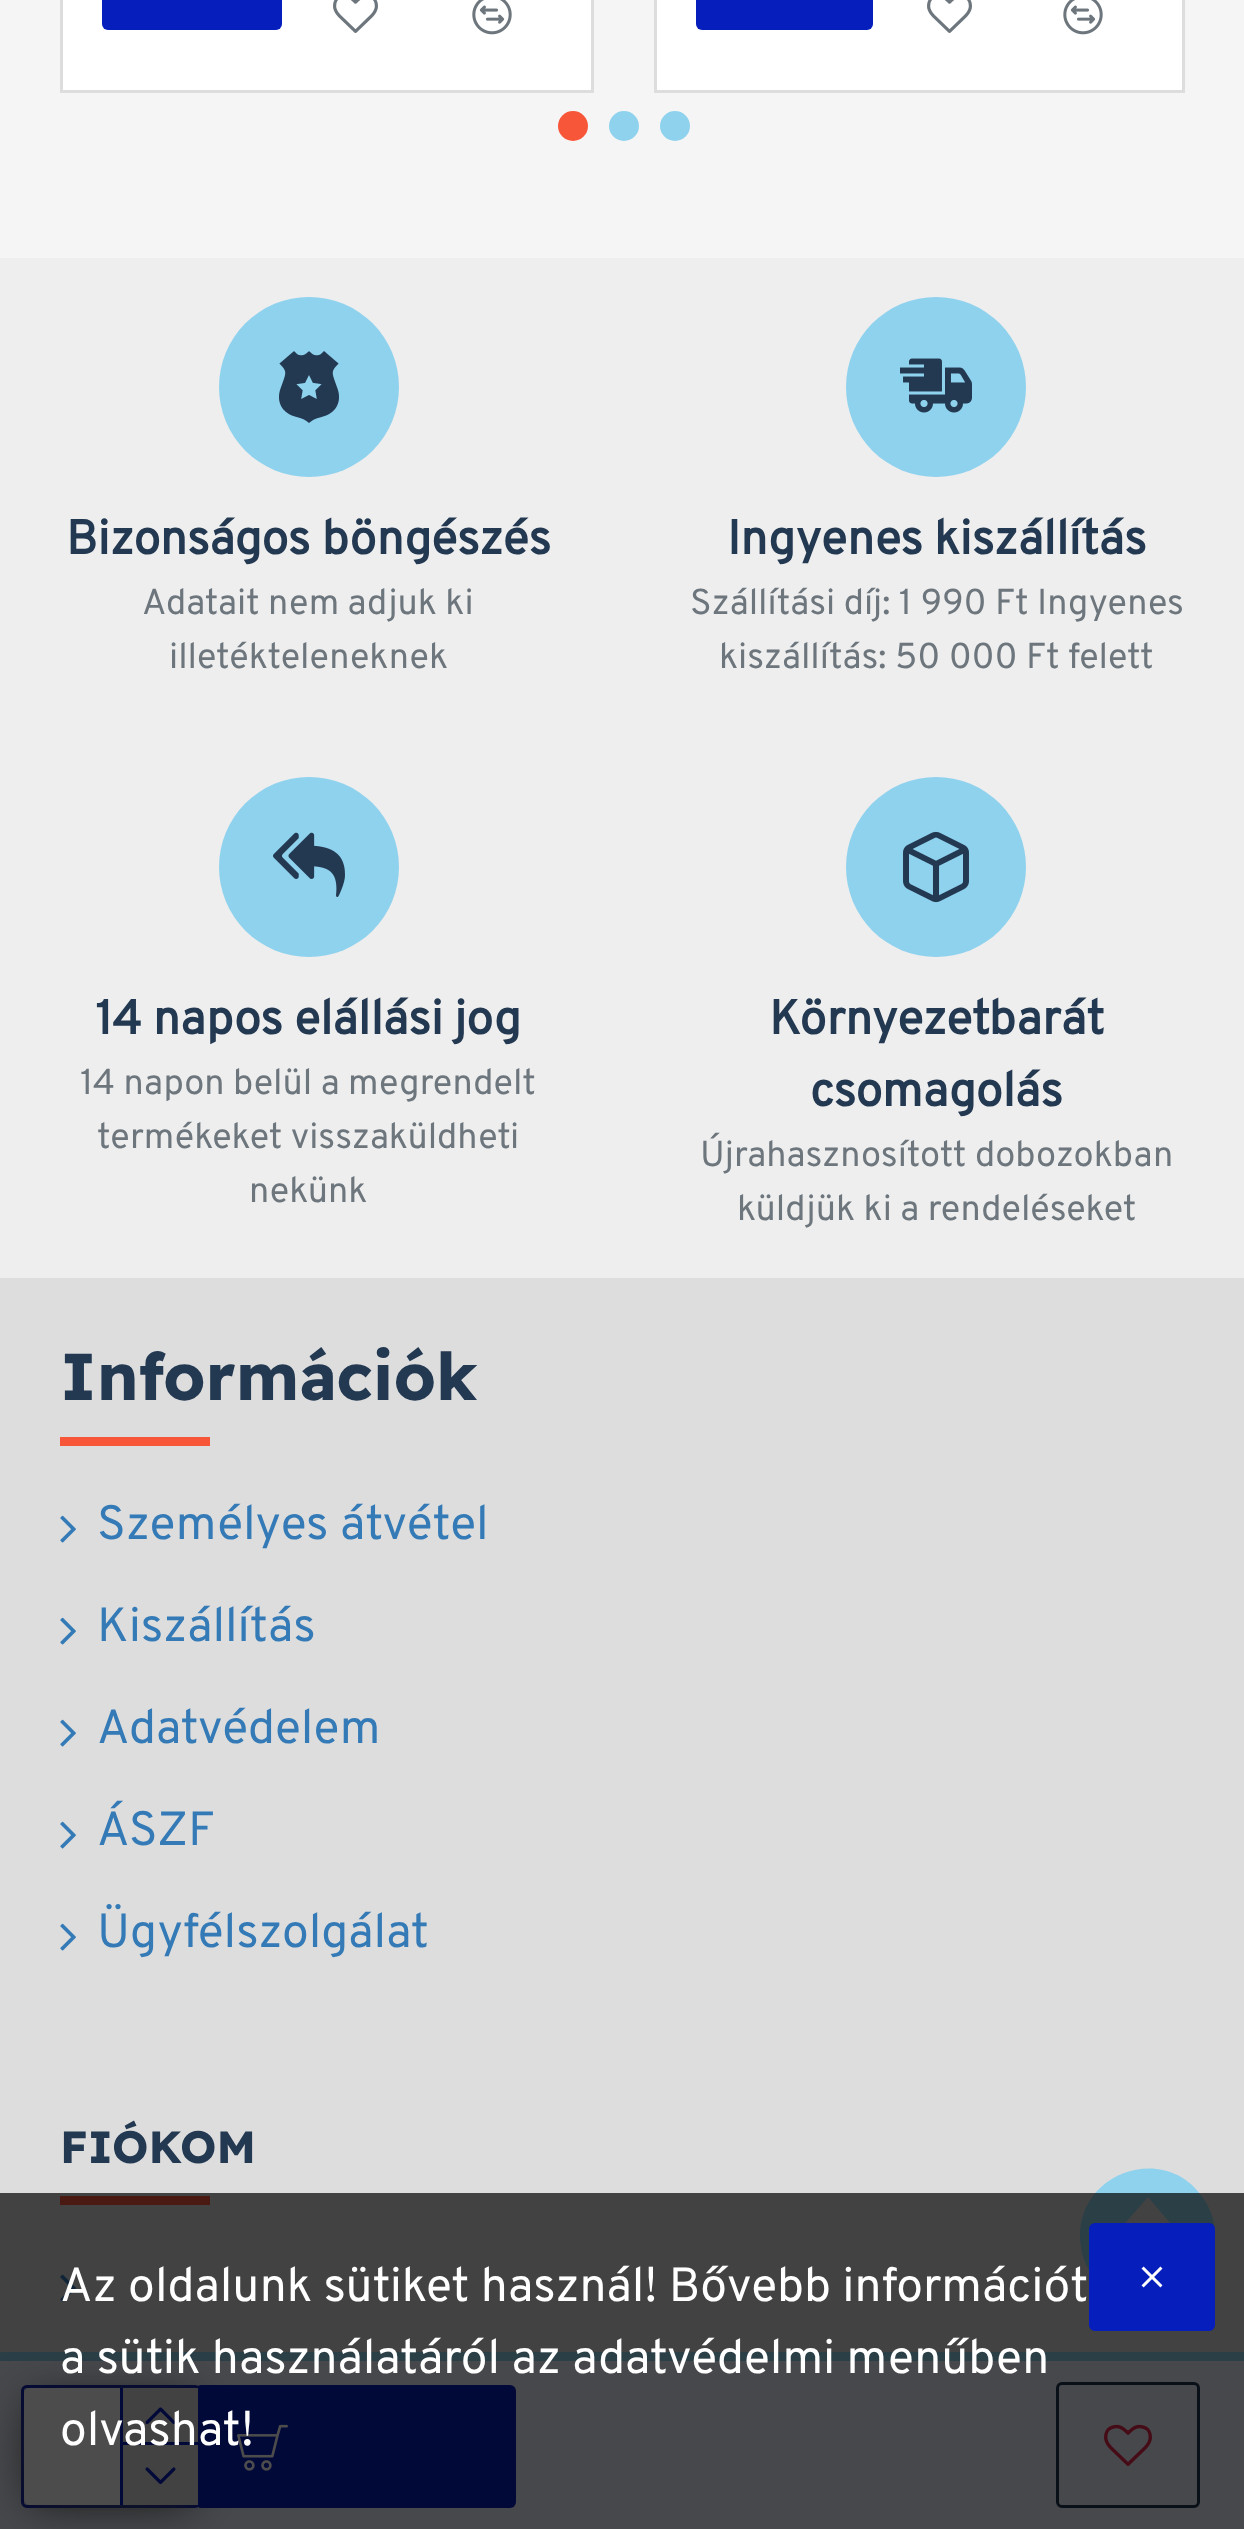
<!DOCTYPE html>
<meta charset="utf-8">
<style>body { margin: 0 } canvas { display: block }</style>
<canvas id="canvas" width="1244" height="2529"></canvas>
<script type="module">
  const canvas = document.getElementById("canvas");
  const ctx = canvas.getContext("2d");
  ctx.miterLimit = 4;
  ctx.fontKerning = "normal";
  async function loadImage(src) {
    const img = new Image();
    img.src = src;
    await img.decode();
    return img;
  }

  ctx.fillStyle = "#f5f5f5";
  ctx.fillRect(0, 0, 1244, 2529);
  ctx.fillStyle = "#ffffff";
  ctx.beginPath();
  ctx.rect(61.5, -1.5, 531, 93);
  ctx.fill();
  ctx.strokeStyle = "#dddddd";
  ctx.lineWidth = 3;
  ctx.stroke();
  ctx.fillStyle = "#061ebb";
  ctx.beginPath();
  ctx.roundRect(102, -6, 180, 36, 6);
  ctx.fill();
  ctx.drawImage(await loadImage("img1.png"), 333, 0, 45, 33);
  ctx.drawImage(await loadImage("img2.png"), 472, 0, 40, 35);
  ctx.fillStyle = "#ffffff";
  ctx.beginPath();
  ctx.rect(655.5, -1.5, 528, 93);
  ctx.fill();
  ctx.stroke();
  ctx.fillStyle = "#061ebb";
  ctx.beginPath();
  ctx.roundRect(696, -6, 177, 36, 6);
  ctx.fill();
  ctx.drawImage(await loadImage("img1.png"), 927, 0, 45, 33);
  ctx.drawImage(await loadImage("img2.png"), 1063, 0, 40, 35);
  ctx.fillStyle = "#f85639";
  ctx.beginPath();
  ctx.arc(573, 126, 15, 0, Math.PI * 2);
  ctx.fill();
  ctx.fillStyle = "#8fd2ee";
  ctx.beginPath();
  ctx.arc(624, 126, 15, 0, Math.PI * 2);
  ctx.fill();
  ctx.beginPath();
  ctx.arc(675, 126, 15, 0, Math.PI * 2);
  ctx.fill();
  ctx.fillStyle = "#dddddd";
  ctx.fillRect(0, 1278, 1244, 1074);
  ctx.fillStyle = "#eeeeee";
  ctx.fillRect(0, 258, 1244, 1020);
  ctx.fillStyle = "#8fd2ee";
  ctx.beginPath();
  ctx.arc(309, 387, 90, 0, Math.PI * 2);
  ctx.fill();
  ctx.drawImage(await loadImage("img3.png"), 279, 351, 60, 72);
  ctx.font = "bold 48px Overpass";
  ctx.fillStyle = "#233851";
  ctx.fillText("Bizonságos böngészés", 66, 554);
  ctx.font = "36px Overpass";
  ctx.fillStyle = "#6d767d";
  ctx.fillText("Adatait nem adjuk ki", 142, 614);
  ctx.fillText("illetékteleneknek", 169, 668);
  ctx.fillStyle = "#8fd2ee";
  ctx.beginPath();
  ctx.arc(936, 387, 90, 0, Math.PI * 2);
  ctx.fill();
  ctx.drawImage(await loadImage("img4.png"), 900, 358, 72, 55);
  ctx.font = "bold 48px Overpass";
  ctx.fillStyle = "#233851";
  ctx.fillText("Ingyenes kiszállítás", 727, 554);
  ctx.font = "36px Overpass";
  ctx.fillStyle = "#6d767d";
  ctx.fillText("Szállítási díj: 1 990 Ft Ingyenes", 690, 614);
  ctx.fillText("kiszállítás: 50 000 Ft felett", 719, 668);
  ctx.fillStyle = "#8fd2ee";
  ctx.beginPath();
  ctx.arc(309, 867, 90, 0, Math.PI * 2);
  ctx.fill();
  ctx.drawImage(await loadImage("img5.png"), 273, 832, 72, 65);
  ctx.font = "bold 48px Overpass";
  ctx.fillStyle = "#233851";
  ctx.fillText("14 napos elállási jog", 95, 1034);
  ctx.font = "36px Overpass";
  ctx.fillStyle = "#6d767d";
  ctx.fillText("14 napon belül a megrendelt", 80, 1094);
  ctx.fillText("termékeket visszaküldheti", 97, 1148);
  ctx.fillText("nekünk", 249, 1202);
  ctx.fillStyle = "#8fd2ee";
  ctx.beginPath();
  ctx.arc(936, 867, 90, 0, Math.PI * 2);
  ctx.fill();
  ctx.drawImage(await loadImage("img6.png"), 903, 831, 66, 72);
  ctx.font = "bold 48px Overpass";
  ctx.fillStyle = "#233851";
  ctx.fillText("Környezetbarát", 769, 1034);
  ctx.fillText("csomagolás", 810, 1106);
  ctx.font = "36px Overpass";
  ctx.fillStyle = "#6d767d";
  ctx.fillText("Újrahasznosított dobozokban", 700, 1166);
  ctx.fillText("küldjük ki a rendeléseket", 737, 1220);
  ctx.font = "bold 66px Readex Pro";
  ctx.fillStyle = "#233851";
  ctx.fillText("Információk", 60, 1400);
  ctx.fillStyle = "#f85639";
  ctx.fillRect(60, 1437, 150, 9);
  ctx.drawImage(await loadImage("img7.png"), 60, 1515, 16, 28);
  ctx.font = "48px Overpass";
  ctx.fillStyle = "#337ab7";
  ctx.fillText("Személyes átvétel", 97, 1539);
  ctx.drawImage(await loadImage("img7.png"), 60, 1617, 16, 28);
  ctx.fillText("Kiszállítás", 97, 1641);
  ctx.drawImage(await loadImage("img7.png"), 60, 1719, 16, 28);
  ctx.fillText("Adatvédelem", 97, 1743);
  ctx.drawImage(await loadImage("img7.png"), 60, 1821, 16, 28);
  ctx.fillText("ÁSZF", 97, 1845);
  ctx.drawImage(await loadImage("img7.png"), 60, 1923, 16, 28);
  ctx.fillText("Ügyfélszolgálat", 97, 1947);
  ctx.font = "bold 45px Readex Pro";
  ctx.fillStyle = "#233851";
  ctx.fillText("FIÓKOM", 60, 2163);
  ctx.fillStyle = "#f85639";
  ctx.fillRect(60, 2196, 150, 9);
  ctx.drawImage(await loadImage("img7.png"), 60, 2274, 16, 28);
  ctx.fillStyle = "#edf2fe";
  ctx.fillRect(0, 2361, 1244, 168);
  ctx.fillStyle = "#8fd2ee";
  ctx.fillRect(0, 2352, 1244, 9);
  ctx.beginPath();
  ctx.roundRect(22.5, 2386.5, 177, 120, 4.5);
  ctx.strokeStyle = "#061ebb";
  ctx.stroke();
  ctx.fillStyle = "#555555";
  ctx.filter = "blur(22.5px)";
  ctx.beginPath();
  ctx.rect(30, 2400, 162, 105);
  ctx.fill();
  ctx.filter = "none";
  ctx.fillStyle = "#ffffff";
  ctx.beginPath();
  ctx.roundRect(24, 2388, 174, 117, 6);
  ctx.fill();
  ctx.fillStyle = "#061ebb";
  ctx.fillRect(120, 2388, 3, 117);
  ctx.beginPath();
  ctx.roundRect(195, 2385, 321, 123, 6);
  ctx.fill();
  ctx.fillStyle = "#dddddd";
  ctx.fillRect(123, 2388, 75, 54);
  ctx.fillStyle = "#061ebb";
  ctx.fillRect(123, 2442, 75, 3);
  ctx.drawImage(await loadImage("img8.png"), 145, 2407, 31, 18);
  ctx.fillStyle = "#dddddd";
  ctx.fillRect(123, 2445, 75, 60);
  ctx.drawImage(await loadImage("img9.png"), 145, 2467, 31, 18);
  ctx.drawImage(await loadImage("img10.png"), 237, 2424, 51, 47);
  ctx.beginPath();
  ctx.roundRect(1057.5, 2383.5, 141, 123, 4.5);
  ctx.strokeStyle = "#233851";
  ctx.stroke();
  ctx.drawImage(await loadImage("img11.png"), 1104, 2424, 48, 42);
  ctx.fillStyle = "#8fd2ee";
  ctx.beginPath();
  ctx.moveTo(1080, 2236);
  ctx.bezierCurveTo(1080, 2302, 1167, 2329, 1203, 2274);
  ctx.bezierCurveTo(1211, 2263, 1215, 2249, 1215, 2236);
  ctx.bezierCurveTo(1215, 2222, 1211, 2209, 1203, 2198);
  ctx.bezierCurveTo(1167, 2143, 1080, 2170, 1080, 2236);
  ctx.closePath();
  ctx.moveTo(1176, 2230);
  ctx.lineTo(1153, 2230);
  ctx.lineTo(1153, 2275);
  ctx.lineTo(1142, 2275);
  ctx.lineTo(1142, 2230);
  ctx.lineTo(1119, 2230);
  ctx.lineTo(1148, 2197);
  ctx.closePath();
  ctx.fill();
  ctx.fillStyle = "rgba(0, 0, 0, 0.7)";
  ctx.fillRect(0, 2193, 1244, 336);
  ctx.font = "48px Overpass";
  ctx.fillStyle = "#ffffff";
  ctx.fillText("Az oldalunk sütiket használ! Bővebb információt", 60, 2301);
  ctx.fillText("a sütik használatáról az adatvédelmi menűben", 60, 2373);
  ctx.fillText("olvashat!", 60, 2445);
  ctx.fillStyle = "#061ebb";
  ctx.beginPath();
  ctx.roundRect(1089, 2223, 126, 108, 6);
  ctx.fill();
  ctx.drawImage(await loadImage("img12.png"), 1141, 2266, 22, 22);
</script>
